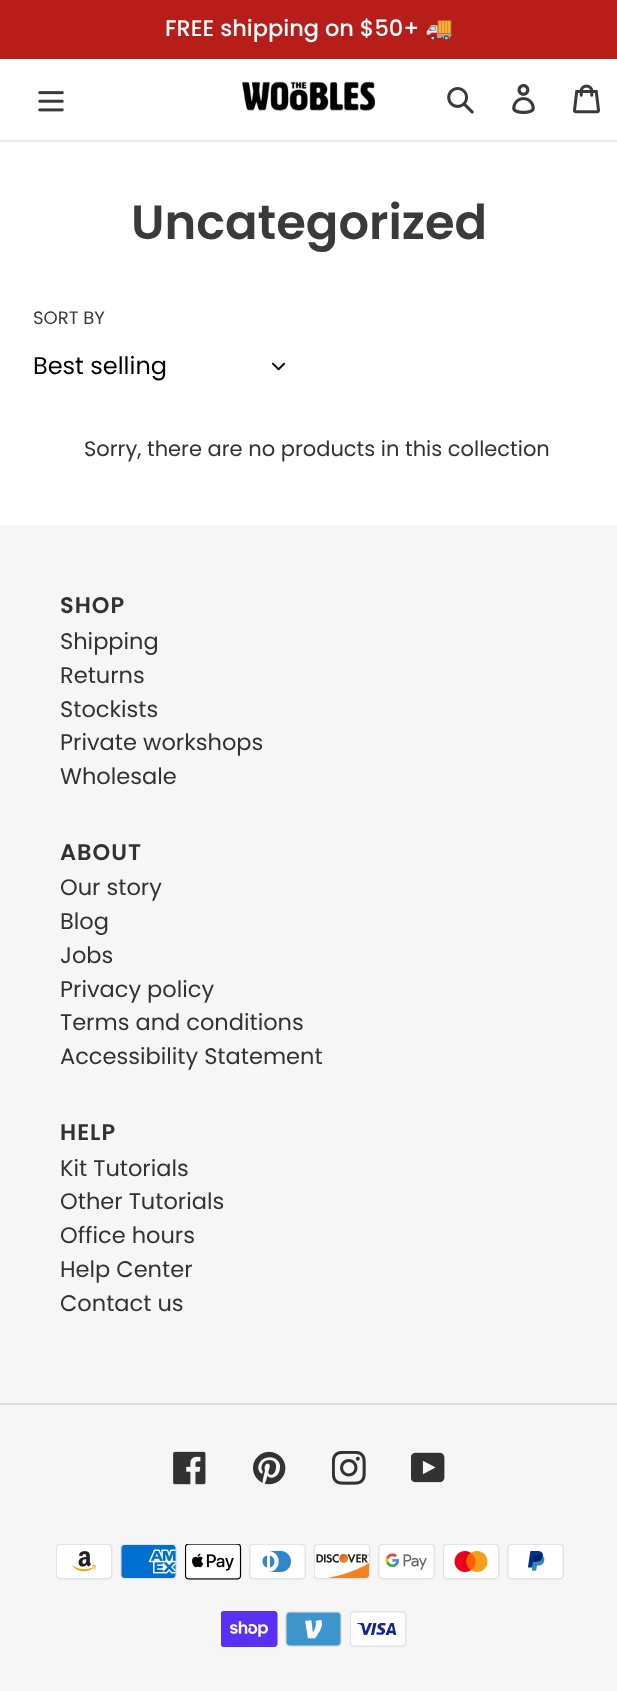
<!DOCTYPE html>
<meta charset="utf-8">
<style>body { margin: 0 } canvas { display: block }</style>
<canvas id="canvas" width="617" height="1691"></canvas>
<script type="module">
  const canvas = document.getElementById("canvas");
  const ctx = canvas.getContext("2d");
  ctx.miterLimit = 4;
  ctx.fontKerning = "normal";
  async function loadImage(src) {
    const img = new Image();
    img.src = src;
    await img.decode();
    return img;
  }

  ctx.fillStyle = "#ffffff";
  ctx.fillRect(0, 0, 617, 1691);
  ctx.fillStyle = "#b81e19";
  ctx.fillRect(0, 0, 617, 59);
  ctx.font = "500 22.5px Poppins";
  ctx.fillStyle = "#ffffff";
  ctx.fillText("FREE shipping on $50+", 165, 36);
  ctx.font = "22.5px Noto Color Emoji";
  ctx.fillText("🚚", 425, 36);
  ctx.fillStyle = "#ebebeb";
  ctx.fillRect(0, 140, 617, 2);
  ctx.drawImage(await loadImage("img1.png"), 242, 81, 134, 30);
  ctx.drawImage(await loadImage("img2.png"), 38, 91, 26, 21);
  ctx.drawImage(await loadImage("img3.png"), 447, 87, 27, 27);
  ctx.drawImage(await loadImage("img4.png"), 512, 84, 23, 30);
  ctx.drawImage(await loadImage("img5.png"), 573, 84, 27, 30);
  ctx.font = "600 48px Poppins";
  ctx.fillStyle = "#3a3a3a";
  ctx.fillText("Uncategorized", 131, 239);
  ctx.font = "18px Poppins";
  ctx.fillText("SORT BY", 33, 324);
  ctx.font = "24px Poppins";
  ctx.fillStyle = "#000000";
  ctx.fillText("Best selling", 33, 374);
  ctx.drawImage(await loadImage("img6.png"), 272, 362, 13, 9);
  ctx.font = "21px Poppins";
  ctx.fillStyle = "#333232";
  ctx.fillText("Sorry, there are no products in this collection", 84, 456);
  ctx.fillStyle = "#f6f6f6";
  ctx.fillRect(0, 525, 617, 1166);
  ctx.letterSpacing = "1px";
  ctx.font = "600 22.5px Poppins";
  ctx.fillStyle = "#333232";
  ctx.fillText("SHOP", 60, 613);
  ctx.letterSpacing = "0px";
  ctx.font = "22.5px Poppins";
  ctx.fillText("Shipping", 60, 649);
  ctx.fillText("Returns", 60, 683);
  ctx.fillText("Stockists", 60, 717);
  ctx.fillText("Private workshops", 60, 750);
  ctx.fillText("Wholesale", 60, 784);
  ctx.letterSpacing = "1px";
  ctx.font = "600 22.5px Poppins";
  ctx.fillText("ABOUT", 60, 860);
  ctx.letterSpacing = "0px";
  ctx.font = "22.5px Poppins";
  ctx.fillText("Our story", 60, 895);
  ctx.fillText("Blog", 60, 929);
  ctx.fillText("Jobs", 60, 963);
  ctx.fillText("Privacy policy", 60, 997);
  ctx.fillText("Terms and conditions", 60, 1030);
  ctx.fillText("Accessibility Statement", 60, 1064);
  ctx.letterSpacing = "1px";
  ctx.font = "600 22.5px Poppins";
  ctx.fillText("HELP", 60, 1140);
  ctx.letterSpacing = "0px";
  ctx.font = "22.5px Poppins";
  ctx.fillText("Kit Tutorials", 60, 1176);
  ctx.fillText("Other Tutorials", 60, 1209);
  ctx.fillText("Office hours", 60, 1243);
  ctx.fillText("Help Center", 60, 1277);
  ctx.fillText("Contact us", 60, 1311);
  ctx.fillStyle = "#dddddd";
  ctx.fillRect(0, 1403, 617, 2);
  ctx.drawImage(await loadImage("img7.png"), 173, 1451, 33, 34);
  ctx.drawImage(await loadImage("img8.png"), 253, 1451, 33, 34);
  ctx.drawImage(await loadImage("img9.png"), 332, 1451, 34, 34);
  ctx.drawImage(await loadImage("img10.png"), 411, 1452, 34, 31);
  ctx.drawImage(await loadImage("img11.png"), 56, 1544, 57, 36);
  ctx.drawImage(await loadImage("img12.png"), 120, 1544, 57, 36);
  ctx.drawImage(await loadImage("img13.png"), 185, 1544, 57, 36);
  ctx.drawImage(await loadImage("img14.png"), 249, 1544, 57, 36);
  ctx.drawImage(await loadImage("img15.png"), 314, 1544, 57, 36);
  ctx.drawImage(await loadImage("img16.png"), 378, 1544, 57, 36);
  ctx.drawImage(await loadImage("img17.png"), 443, 1544, 57, 36);
  ctx.drawImage(await loadImage("img18.png"), 507, 1544, 57, 36);
  ctx.drawImage(await loadImage("img19.png"), 221, 1611, 57, 36);
  ctx.drawImage(await loadImage("img20.png"), 285, 1611, 57, 36);
  ctx.drawImage(await loadImage("img21.png"), 350, 1611, 57, 36);
</script>
